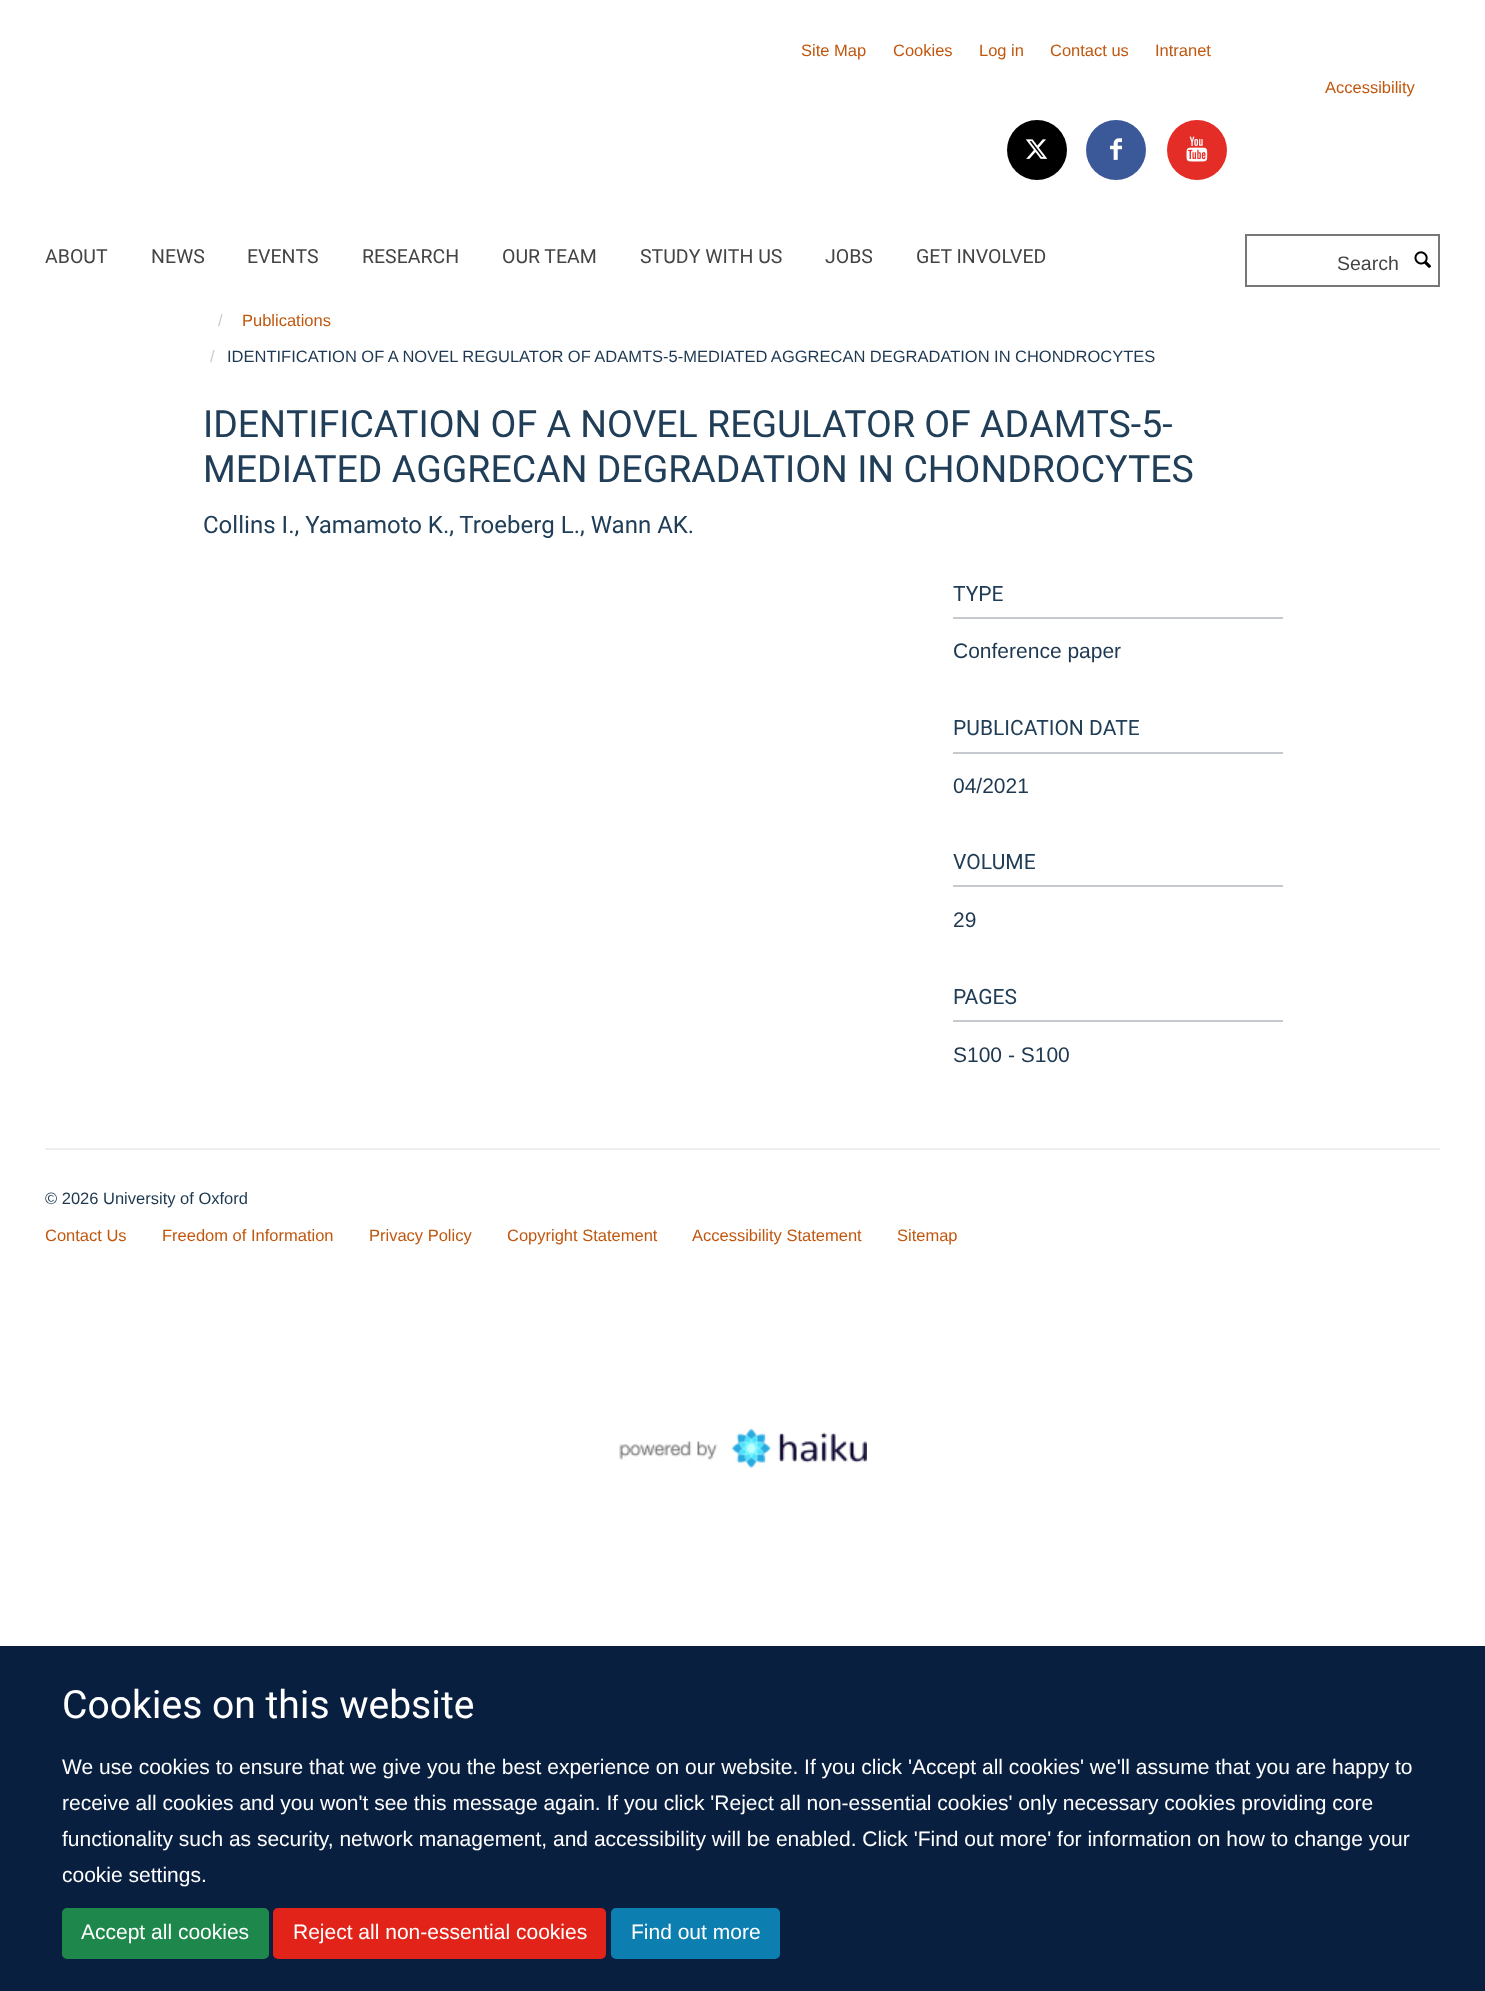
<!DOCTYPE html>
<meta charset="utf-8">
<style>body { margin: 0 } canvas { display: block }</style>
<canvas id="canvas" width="1485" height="1991"></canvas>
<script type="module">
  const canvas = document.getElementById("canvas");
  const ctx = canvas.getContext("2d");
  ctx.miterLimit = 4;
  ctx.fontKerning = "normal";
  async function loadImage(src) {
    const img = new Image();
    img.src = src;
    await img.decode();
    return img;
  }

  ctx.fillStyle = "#ffffff";
  ctx.fillRect(0, 0, 1485, 1991);
  ctx.font = "16.5px Liberation Sans";
  ctx.fillStyle = "#c1570e";
  ctx.fillText("Site Map", 801, 56);
  ctx.fillText("Cookies", 893, 56);
  ctx.fillText("Log in", 979, 56);
  ctx.fillText("Contact us", 1050, 56);
  ctx.fillText("Intranet", 1155, 56);
  ctx.fillText("Accessibility", 1325, 93);
  ctx.fillStyle = "#000000";
  ctx.beginPath();
  ctx.arc(1037, 150, 30, 0, Math.PI * 2);
  ctx.fill();
  ctx.drawImage(await loadImage("img1.png"), 1025, 139, 23, 20);
  ctx.fillStyle = "#3b5998";
  ctx.beginPath();
  ctx.arc(1116, 150, 30, 0, Math.PI * 2);
  ctx.fill();
  ctx.drawImage(await loadImage("img2.png"), 1110, 138, 12, 22);
  ctx.fillStyle = "#e52d27";
  ctx.beginPath();
  ctx.arc(1197, 150, 30, 0, Math.PI * 2);
  ctx.fill();
  ctx.drawImage(await loadImage("img3.png"), 1186, 136, 22, 26);
  ctx.font = "19.5px Heebo";
  ctx.fillStyle = "#444444";
  ctx.fillText("ABOUT", 45, 263);
  ctx.fillText("NEWS", 151, 263);
  ctx.fillText("EVENTS", 247, 263);
  ctx.fillText("RESEARCH", 362, 263);
  ctx.fillText("OUR TEAM", 502, 263);
  ctx.fillText("STUDY WITH US", 640, 263);
  ctx.fillText("JOBS", 825, 263);
  ctx.fillText("GET INVOLVED", 916, 263);
  ctx.strokeStyle = "#777777";
  ctx.lineWidth = 2;
  ctx.strokeRect(1246, 235, 193, 51);
  ctx.font = "19.5px Liberation Sans";
  ctx.fillText("Search", 1337, 270);
  ctx.drawImage(await loadImage("img4.png"), 1414, 251, 17, 17);
  ctx.font = "16.5px Liberation Sans";
  ctx.fillStyle = "#cccccc";
  ctx.fillText("/", 218, 326);
  ctx.fillStyle = "#c1570e";
  ctx.fillText("Publications", 242, 326);
  ctx.fillStyle = "#cccccc";
  ctx.fillText("/", 210, 362);
  ctx.wordSpacing = "-0.1px";
  ctx.fillStyle = "#1d3850";
  ctx.fillText("IDENTIFICATION OF A NOVEL REGULATOR OF ADAMTS-5-MEDIATED AGGRECAN DEGRADATION IN CHONDROCYTES", 227, 362);
  ctx.wordSpacing = "0px";
  ctx.font = "37.5px Heebo";
  ctx.fillStyle = "#203e58";
  ctx.fillText("IDENTIFICATION OF A NOVEL REGULATOR OF ADAMTS-5-", 203, 437);
  ctx.fillText("MEDIATED AGGRECAN DEGRADATION IN CHONDROCYTES", 203, 482);
  ctx.font = "24px Heebo";
  ctx.fillText("Collins I., Yamamoto K., Troeberg L., Wann AK.", 203, 533);
  ctx.fillStyle = "#c6cacf";
  ctx.fillRect(953, 617, 330, 2);
  ctx.font = "21px Heebo";
  ctx.fillStyle = "#203e58";
  ctx.fillText("TYPE", 953, 601);
  ctx.font = "21px Liberation Sans";
  ctx.fillStyle = "#1d3850";
  ctx.fillText("Conference paper", 953, 658);
  ctx.fillStyle = "#c6cacf";
  ctx.fillRect(953, 752, 330, 2);
  ctx.font = "21px Heebo";
  ctx.fillStyle = "#203e58";
  ctx.fillText("PUBLICATION DATE", 953, 735);
  ctx.font = "21px Liberation Sans";
  ctx.fillStyle = "#1d3850";
  ctx.fillText("04/2021", 953, 793);
  ctx.fillStyle = "#c6cacf";
  ctx.fillRect(953, 885, 330, 2);
  ctx.font = "21px Heebo";
  ctx.fillStyle = "#203e58";
  ctx.fillText("VOLUME", 953, 869);
  ctx.font = "21px Liberation Sans";
  ctx.fillStyle = "#1d3850";
  ctx.fillText("29", 953, 927);
  ctx.fillStyle = "#c6cacf";
  ctx.fillRect(953, 1020, 330, 2);
  ctx.font = "21px Heebo";
  ctx.fillStyle = "#203e58";
  ctx.fillText("PAGES", 953, 1004);
  ctx.font = "21px Liberation Sans";
  ctx.fillStyle = "#1d3850";
  ctx.fillText("S100 - S100", 953, 1062);
  ctx.fillStyle = "#eeeeee";
  ctx.fillRect(45, 1148, 1395, 2);
  ctx.font = "16.5px Liberation Sans";
  ctx.fillStyle = "#1d3850";
  ctx.fillText("© 2026 University of Oxford", 45, 1204);
  ctx.fillStyle = "#c1570e";
  ctx.fillText("Contact Us", 45, 1241);
  ctx.fillText("Freedom of Information", 162, 1241);
  ctx.fillText("Privacy Policy", 369, 1241);
  ctx.fillText("Copyright Statement", 507, 1241);
  ctx.fillText("Accessibility Statement", 692, 1241);
  ctx.fillText("Sitemap", 897, 1241);
  ctx.drawImage(await loadImage("img5.png"), 619, 1428, 248, 41);
  ctx.fillStyle = "#091f40";
  ctx.fillRect(0, 1646, 1485, 345);
  ctx.font = "39px Heebo";
  ctx.fillStyle = "#ffffff";
  ctx.fillText("Cookies on this website", 62, 1718);
  ctx.font = "21px Liberation Sans";
  ctx.fillText("We use cookies to ensure that we give you the best experience on our website. If you click 'Accept all cookies' we'll assume that you are happy to", 62, 1774);
  ctx.fillText("receive all cookies and you won't see this message again. If you click 'Reject all non-essential cookies' only necessary cookies providing core", 62, 1810);
  ctx.fillText("functionality such as security, network management, and accessibility will be enabled. Click 'Find out more' for information on how to change your", 62, 1846);
  ctx.fillText("cookie settings.", 62, 1882);
  ctx.fillStyle = "#1e874b";
  ctx.beginPath();
  ctx.roundRect(63, 1909, 205, 49, 4);
  ctx.fill();
  ctx.strokeStyle = "#1e874b";
  ctx.stroke();
  ctx.fillStyle = "#ffffff";
  ctx.fillText("Accept all cookies", 81, 1939);
  ctx.fillStyle = "#e2231a";
  ctx.beginPath();
  ctx.roundRect(274, 1909, 331, 49, 4);
  ctx.fill();
  ctx.strokeStyle = "#e2231a";
  ctx.stroke();
  ctx.fillStyle = "#ffffff";
  ctx.fillText("Reject all non-essential cookies", 293, 1939);
  ctx.fillStyle = "#0d7eb0";
  ctx.beginPath();
  ctx.roundRect(612, 1909, 167, 49, 4);
  ctx.fill();
  ctx.strokeStyle = "#0d7eb0";
  ctx.stroke();
  ctx.fillStyle = "#ffffff";
  ctx.fillText("Find out more", 631, 1939);
</script>
